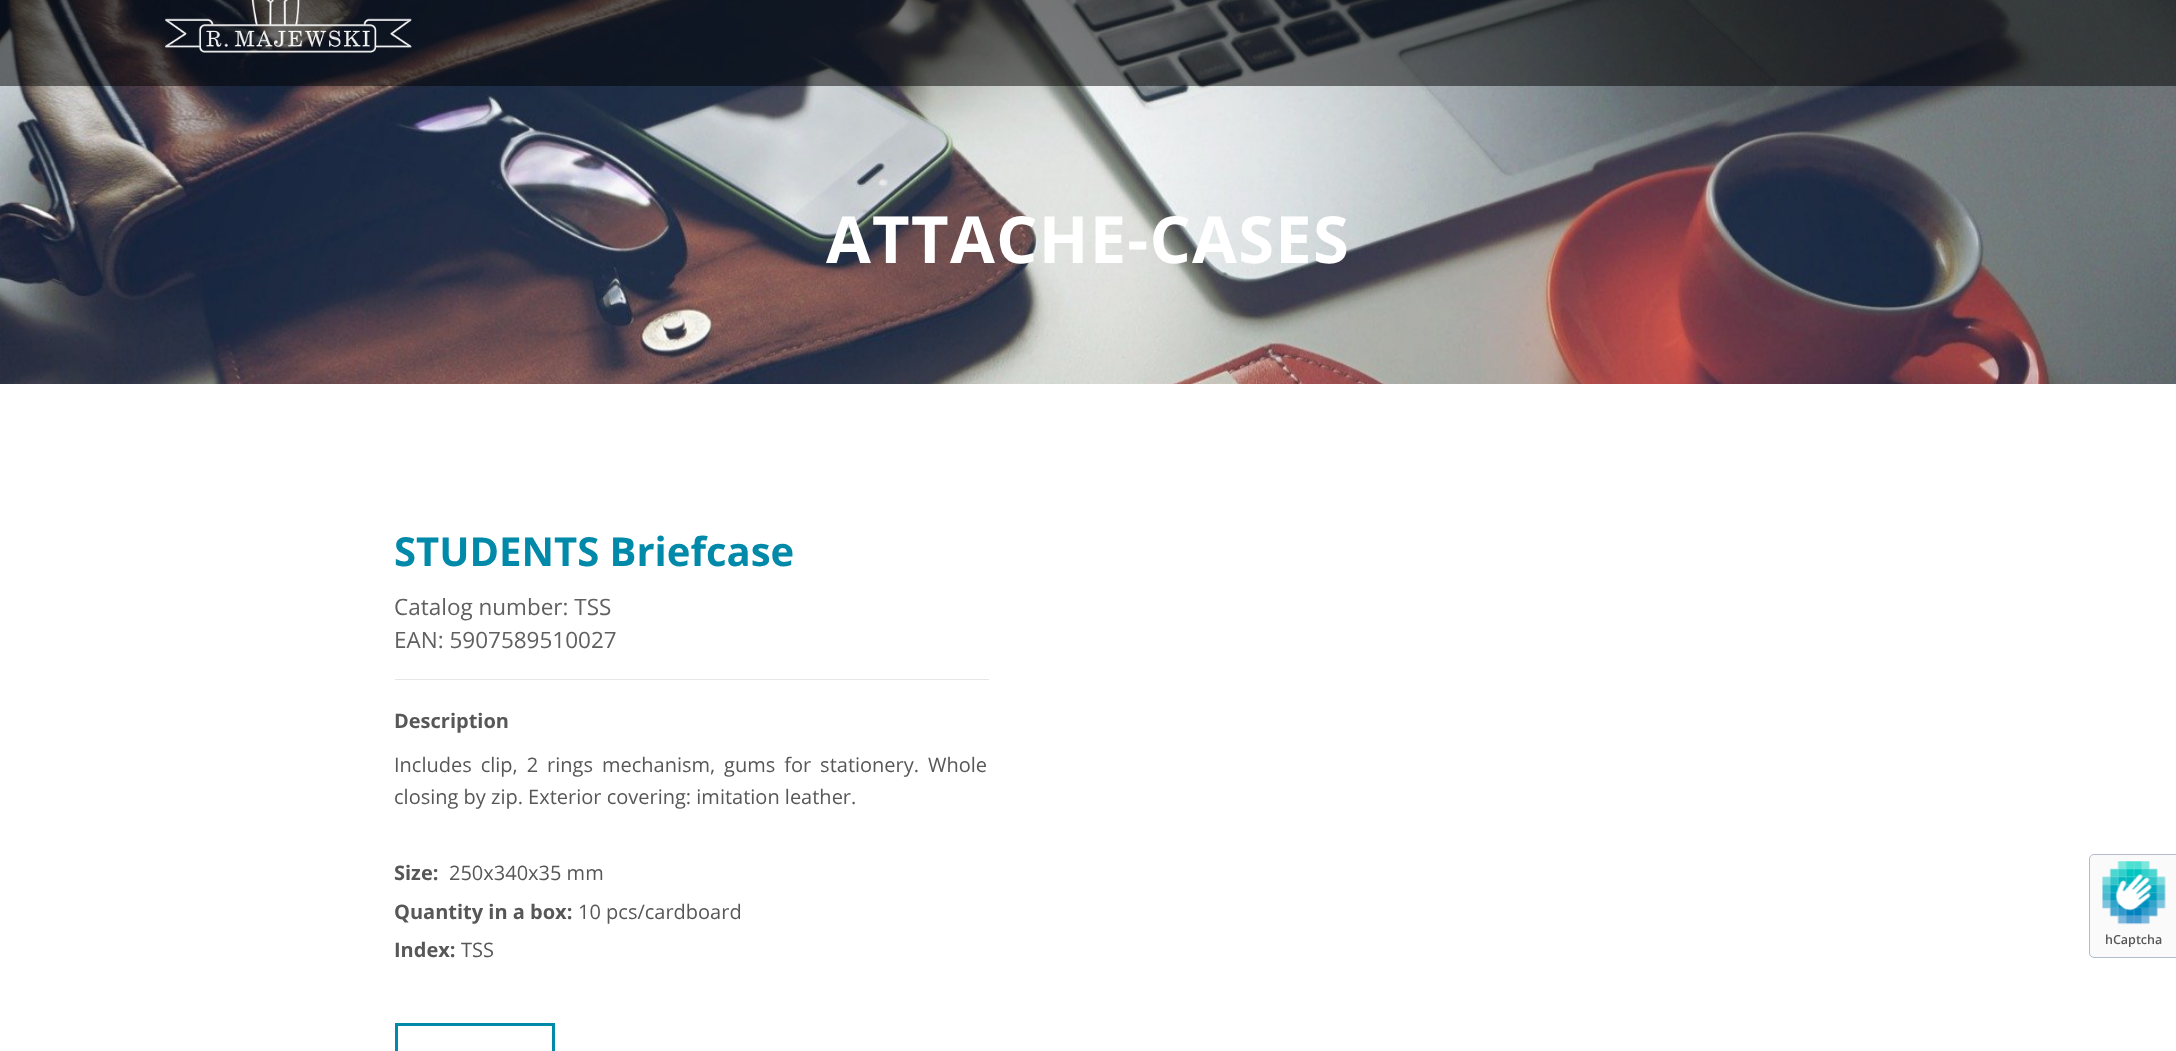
<!DOCTYPE html>
<meta charset="utf-8">
<style>body { margin: 0 } canvas { display: block }</style>
<canvas id="canvas" width="2176" height="1051"></canvas>
<script type="module">
  const canvas = document.getElementById("canvas");
  const ctx = canvas.getContext("2d");
  ctx.miterLimit = 4;
  ctx.fontKerning = "normal";
  async function loadImage(src) {
    const img = new Image();
    img.src = src;
    await img.decode();
    return img;
  }

  ctx.fillStyle = "#ffffff";
  ctx.fillRect(0, 0, 2176, 1051);
  ctx.drawImage(await loadImage("img1.png"), 0, 0, 2176, 384);
  ctx.fillStyle = "rgba(0, 0, 0, 0.5)";
  ctx.fillRect(0, 0, 2176, 86);
  ctx.drawImage(await loadImage("img2.png"), 165, 0, 247, 53);
  ctx.letterSpacing = "1.25px";
  ctx.font = "bold 65px Open Sans";
  ctx.fillStyle = "#ffffff";
  ctx.fillText("ATTACHE-CASES", 826, 263);
  ctx.letterSpacing = "0px";
  ctx.font = "bold 40px Open Sans";
  ctx.fillStyle = "#0089a9";
  ctx.fillText("STUDENTS Briefcase", 394, 566);
  ctx.font = "22.5px Open Sans";
  ctx.fillStyle = "#606060";
  ctx.fillText("Catalog number: TSS", 394, 615);
  ctx.fillText("EAN: 5907589510027", 394, 648);
  ctx.fillStyle = "#e6e6e6";
  ctx.fillRect(395, 679, 594, 1);
  ctx.font = "bold 20px Open Sans";
  ctx.fillStyle = "#575757";
  ctx.fillText("Description", 394, 728);
  ctx.wordSpacing = "3.75px";
  ctx.font = "20px Open Sans";
  ctx.fillText("Includes clip, 2 rings mechanism, gums for stationery. Whole", 394, 772);
  ctx.wordSpacing = "0px";
  ctx.fillText("closing by zip. Exterior covering: imitation leather.", 394, 804);
  ctx.font = "bold 20px Open Sans";
  ctx.fillText("Size:", 394, 880);
  ctx.font = "20px Open Sans";
  ctx.fillText("250x340x35 mm", 449, 880);
  ctx.font = "bold 20px Open Sans";
  ctx.fillText("Quantity in a box:", 394, 919);
  ctx.font = "20px Open Sans";
  ctx.fillText("10 pcs/cardboard", 578, 919);
  ctx.font = "bold 20px Open Sans";
  ctx.fillText("Index:", 394, 957);
  ctx.font = "20px Open Sans";
  ctx.fillText("TSS", 461, 957);
  ctx.strokeStyle = "#0089a9";
  ctx.lineWidth = 3;
  ctx.strokeRect(396.5, 1024.5, 157, 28);
  ctx.fillStyle = "#fafafa";
  ctx.beginPath();
  ctx.roundRect(2089.5, 854.5, 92, 103, 4.5);
  ctx.fill();
  ctx.strokeStyle = "#b2bdcc";
  ctx.lineWidth = 1;
  ctx.stroke();
  ctx.drawImage(await loadImage("img3.png"), 2102, 861, 64, 64);
  ctx.font = "600 12.5px Open Sans";
  ctx.fillStyle = "#575757";
  ctx.fillText("hCaptcha", 2105, 944);
</script>
